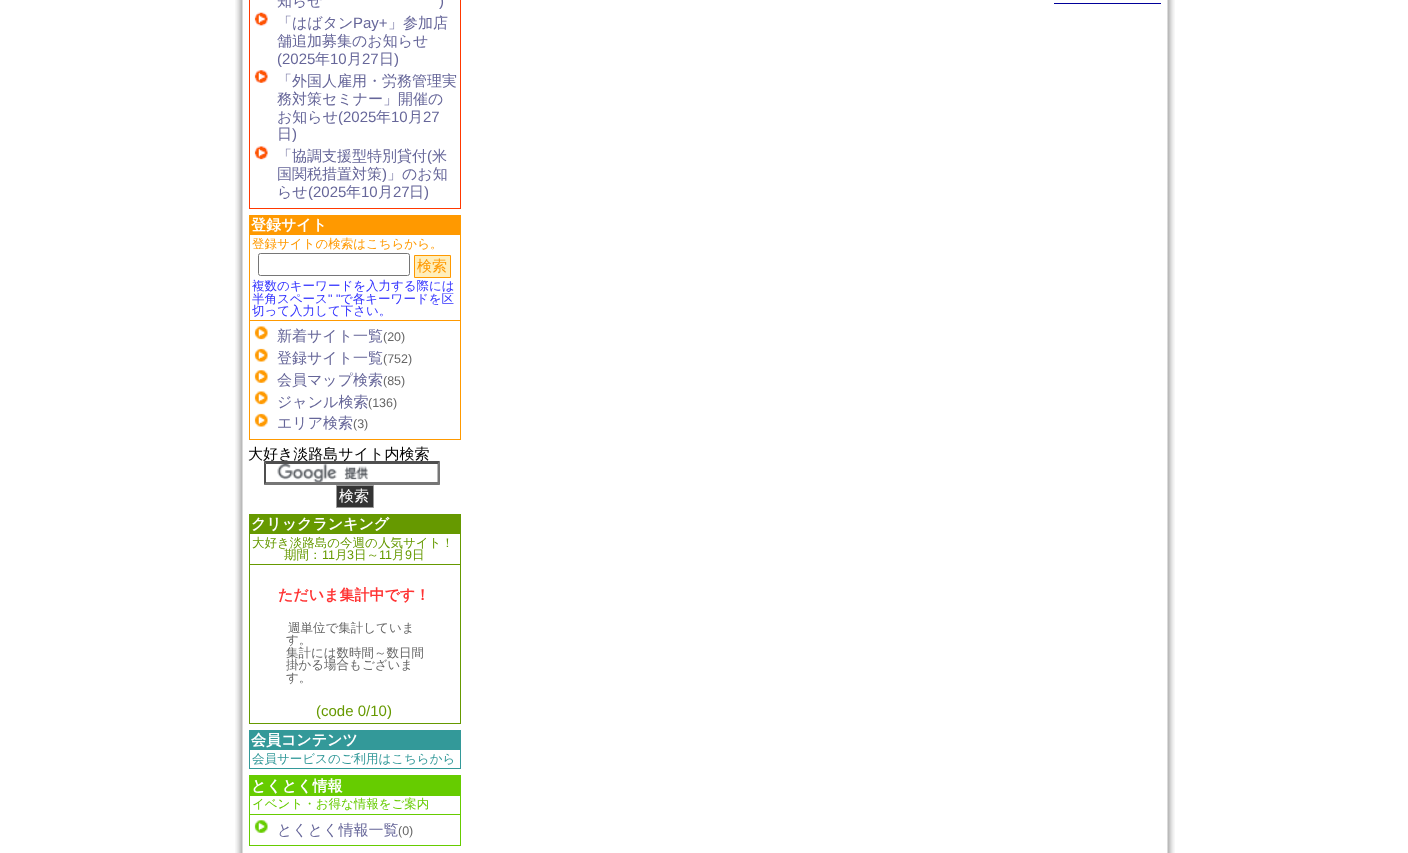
<!DOCTYPE html>
<meta charset="utf-8">
<style>body { margin: 0 } canvas { display: block }</style>
<canvas id="canvas" width="1408" height="853"></canvas>
<script type="module">
  const canvas = document.getElementById("canvas");
  const ctx = canvas.getContext("2d");
  ctx.miterLimit = 4;
  ctx.fontKerning = "normal";
  async function loadImage(src) {
    const img = new Image();
    img.src = src;
    await img.decode();
    return img;
  }

  ctx.fillStyle = "#ffffff";
  ctx.fillRect(0, 0, 1408, 853);
  ctx.drawImage(await loadImage("img1.png"), 235, 0, 940, 853);
  ctx.strokeStyle = "#ff3800";
  ctx.strokeRect(249.5, -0.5, 211, 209);
  ctx.font = "500 15px WenQuanYi Zen Hei";
  ctx.fillStyle = "#666699";
  ctx.fillText("知らせ", 277, 6);
  ctx.font = "15px Liberation Sans";
  ctx.fillText(")", 439, 6);
  ctx.drawImage(await loadImage("img2.png"), 254, 12, 14, 14);
  ctx.font = "500 15px WenQuanYi Zen Hei";
  ctx.fillText("「はばタン", 277, 28);
  ctx.font = "15px Liberation Sans";
  ctx.fillText("Pay+", 353, 28);
  ctx.font = "500 15px WenQuanYi Zen Hei";
  ctx.fillText("」参加店", 388, 28);
  ctx.fillText("舗追加募集のお知らせ", 277, 46);
  ctx.font = "15px Liberation Sans";
  ctx.fillText("(2025", 277, 64);
  ctx.font = "500 15px WenQuanYi Zen Hei";
  ctx.fillText("年", 315, 64);
  ctx.font = "15px Liberation Sans";
  ctx.fillText("10", 330, 64);
  ctx.font = "500 15px WenQuanYi Zen Hei";
  ctx.fillText("月", 347, 64);
  ctx.font = "15px Liberation Sans";
  ctx.fillText("27", 362, 64);
  ctx.font = "500 15px WenQuanYi Zen Hei";
  ctx.fillText("日", 379, 64);
  ctx.font = "15px Liberation Sans";
  ctx.fillText(")", 394, 64);
  ctx.drawImage(await loadImage("img3.png"), 254, 70, 14, 13);
  ctx.font = "500 15px WenQuanYi Zen Hei";
  ctx.fillText("「外国人雇用・労務管理実", 277, 86);
  ctx.fillText("務対策セミナー」開催の", 277, 104);
  ctx.fillText("お知らせ", 277, 122);
  ctx.font = "15px Liberation Sans";
  ctx.fillText("(2025", 338, 122);
  ctx.font = "500 15px WenQuanYi Zen Hei";
  ctx.fillText("年", 376, 122);
  ctx.font = "15px Liberation Sans";
  ctx.fillText("10", 391, 122);
  ctx.font = "500 15px WenQuanYi Zen Hei";
  ctx.fillText("月", 408, 122);
  ctx.font = "15px Liberation Sans";
  ctx.fillText("27", 423, 122);
  ctx.font = "500 15px WenQuanYi Zen Hei";
  ctx.fillText("日", 277, 139);
  ctx.font = "15px Liberation Sans";
  ctx.fillText(")", 292, 139);
  ctx.drawImage(await loadImage("img4.png"), 254, 146, 14, 14);
  ctx.font = "500 15px WenQuanYi Zen Hei";
  ctx.fillText("「協調支援型特別貸付", 277, 161);
  ctx.font = "15px Liberation Sans";
  ctx.fillText("(", 427, 161);
  ctx.font = "500 15px WenQuanYi Zen Hei";
  ctx.fillText("米", 432, 161);
  ctx.fillText("国関税措置対策", 277, 179);
  ctx.font = "15px Liberation Sans";
  ctx.fillText(")", 382, 179);
  ctx.font = "500 15px WenQuanYi Zen Hei";
  ctx.fillText("」のお知", 387, 179);
  ctx.fillText("らせ", 277, 197);
  ctx.font = "15px Liberation Sans";
  ctx.fillText("(2025", 308, 197);
  ctx.font = "500 15px WenQuanYi Zen Hei";
  ctx.fillText("年", 346, 197);
  ctx.font = "15px Liberation Sans";
  ctx.fillText("10", 361, 197);
  ctx.font = "500 15px WenQuanYi Zen Hei";
  ctx.fillText("月", 378, 197);
  ctx.font = "15px Liberation Sans";
  ctx.fillText("27", 393, 197);
  ctx.font = "500 15px WenQuanYi Zen Hei";
  ctx.fillText("日", 409, 197);
  ctx.font = "15px Liberation Sans";
  ctx.fillText(")", 424, 197);
  ctx.strokeStyle = "#ff9900";
  ctx.strokeRect(249.5, 215.5, 211, 224);
  ctx.fillStyle = "#ff9900";
  ctx.fillRect(250, 216, 210, 19);
  ctx.font = "bold 15px WenQuanYi Zen Hei";
  ctx.fillStyle = "#ffffff";
  ctx.fillText("登録サイト", 251, 230);
  ctx.font = "500 12.5px WenQuanYi Zen Hei";
  ctx.fillStyle = "#ff9900";
  ctx.fillText("登録サイトの検索はこちらから。", 252, 248);
  ctx.beginPath();
  ctx.roundRect(258.5, 253.5, 151, 22, 2);
  ctx.strokeStyle = "#767676";
  ctx.stroke();
  ctx.fillStyle = "#ffeebb";
  ctx.beginPath();
  ctx.rect(414.5, 255.5, 36, 22);
  ctx.fill();
  ctx.strokeStyle = "#ff9900";
  ctx.stroke();
  ctx.font = "500 15px WenQuanYi Zen Hei";
  ctx.fillStyle = "#ff9900";
  ctx.fillText("検索", 417, 271);
  ctx.font = "500 12.5px WenQuanYi Zen Hei";
  ctx.fillStyle = "#3333ff";
  ctx.fillText("複数のキーワードを入力する際には", 252, 290);
  ctx.fillText("半角スペース", 252, 303);
  ctx.font = "12.5px Liberation Sans";
  ctx.fillText("\" \"", 328, 303);
  ctx.font = "500 12.5px WenQuanYi Zen Hei";
  ctx.fillText("で各キーワードを区", 340, 303);
  ctx.fillText("切って入力して下さい。", 252, 315);
  ctx.fillStyle = "#ff9900";
  ctx.fillRect(250, 320, 210, 1);
  ctx.drawImage(await loadImage("img5.png"), 254, 326, 14, 14);
  ctx.font = "500 15px WenQuanYi Zen Hei";
  ctx.fillStyle = "#666699";
  ctx.fillText("新着サイト一覧", 277, 341);
  ctx.font = "12.5px Liberation Sans";
  ctx.fillStyle = "#666666";
  ctx.fillText("(20)", 383, 341);
  ctx.drawImage(await loadImage("img6.png"), 254, 348, 14, 14);
  ctx.font = "500 15px WenQuanYi Zen Hei";
  ctx.fillStyle = "#666699";
  ctx.fillText("登録サイト一覧", 277, 363);
  ctx.font = "12.5px Liberation Sans";
  ctx.fillStyle = "#666666";
  ctx.fillText("(752)", 383, 363);
  ctx.drawImage(await loadImage("img7.png"), 254, 370, 14, 13);
  ctx.font = "500 15px WenQuanYi Zen Hei";
  ctx.fillStyle = "#666699";
  ctx.fillText("会員マップ検索", 277, 385);
  ctx.font = "12.5px Liberation Sans";
  ctx.fillStyle = "#666666";
  ctx.fillText("(85)", 383, 385);
  ctx.drawImage(await loadImage("img5.png"), 254, 391, 14, 14);
  ctx.font = "500 15px WenQuanYi Zen Hei";
  ctx.fillStyle = "#666699";
  ctx.fillText("ジャンル検索", 277, 407);
  ctx.font = "12.5px Liberation Sans";
  ctx.fillStyle = "#666666";
  ctx.fillText("(136)", 368, 407);
  ctx.drawImage(await loadImage("img6.png"), 254, 413, 14, 14);
  ctx.font = "500 15px WenQuanYi Zen Hei";
  ctx.fillStyle = "#666699";
  ctx.fillText("エリア検索", 277, 428);
  ctx.font = "12.5px Liberation Sans";
  ctx.fillStyle = "#666666";
  ctx.fillText("(3)", 353, 428);
  ctx.font = "500 15px WenQuanYi Zen Hei";
  ctx.fillStyle = "#000000";
  ctx.fillText("大好き淡路島サイト内検索", 248, 459);
  ctx.fillStyle = "#ffffff";
  ctx.fillRect(264, 461, 158, 1);
  ctx.drawImage(await loadImage("img8.png"), 277, 464, 92, 18);
  ctx.fillStyle = "#4f4f4f";
  ctx.beginPath();
  ctx.moveTo(264, 461);
  ctx.lineTo(440, 461);
  ctx.lineTo(438, 464);
  ctx.lineTo(266, 464);
  ctx.closePath();
  ctx.fill();
  ctx.fillStyle = "#767676";
  ctx.beginPath();
  ctx.moveTo(440, 461);
  ctx.lineTo(440, 485);
  ctx.lineTo(437.5, 482.5);
  ctx.lineTo(437.5, 464);
  ctx.closePath();
  ctx.fill();
  ctx.beginPath();
  ctx.moveTo(440, 485);
  ctx.lineTo(264, 485);
  ctx.lineTo(266, 482);
  ctx.lineTo(438, 482);
  ctx.closePath();
  ctx.fill();
  ctx.fillStyle = "#4f4f4f";
  ctx.beginPath();
  ctx.moveTo(264, 485);
  ctx.lineTo(264, 461);
  ctx.lineTo(266, 464);
  ctx.lineTo(266, 482.5);
  ctx.closePath();
  ctx.fill();
  ctx.fillStyle = "#333333";
  ctx.beginPath();
  ctx.rect(336.5, 485.5, 37, 22);
  ctx.fill();
  ctx.strokeStyle = "#999999";
  ctx.stroke();
  ctx.fillStyle = "#ffffff";
  ctx.fillText("検索", 339, 501);
  ctx.strokeStyle = "#669900";
  ctx.strokeRect(249.5, 514.5, 211, 209);
  ctx.fillStyle = "#669900";
  ctx.fillRect(250, 515, 210, 19);
  ctx.font = "bold 15px WenQuanYi Zen Hei";
  ctx.fillStyle = "#ffffff";
  ctx.fillText("クリックランキング", 251, 529);
  ctx.font = "500 12.5px WenQuanYi Zen Hei";
  ctx.fillStyle = "#669900";
  ctx.fillText("大好き淡路島の今週の人気サイト！", 252, 547);
  ctx.fillText("期間：", 284, 559);
  ctx.font = "12.5px Liberation Sans";
  ctx.fillText("11", 322, 559);
  ctx.font = "500 12.5px WenQuanYi Zen Hei";
  ctx.fillText("月", 335, 559);
  ctx.font = "12.5px Liberation Sans";
  ctx.fillText("3", 347, 559);
  ctx.font = "500 12.5px WenQuanYi Zen Hei";
  ctx.fillText("日～", 354, 559);
  ctx.font = "12.5px Liberation Sans";
  ctx.fillText("11", 379, 559);
  ctx.font = "500 12.5px WenQuanYi Zen Hei";
  ctx.fillText("月", 392, 559);
  ctx.font = "12.5px Liberation Sans";
  ctx.fillText("9", 405, 559);
  ctx.font = "500 12.5px WenQuanYi Zen Hei";
  ctx.fillText("日", 412, 559);
  ctx.fillRect(250, 564, 210, 1);
  ctx.font = "bold 15px WenQuanYi Zen Hei";
  ctx.fillStyle = "#ff3333";
  ctx.fillText("ただいま集計中です！", 278, 600);
  ctx.font = "500 12.5px WenQuanYi Zen Hei";
  ctx.fillStyle = "#666666";
  ctx.fillText("週単位で集計していま", 288, 632);
  ctx.fillText("す。", 286, 644);
  ctx.fillText("集計には数時間～数日間", 286, 657);
  ctx.fillText("掛かる場合もございま", 286, 669);
  ctx.fillText("す。", 286, 682);
  ctx.font = "15px Liberation Sans";
  ctx.fillStyle = "#669900";
  ctx.fillText("(code 0/10)", 316, 716);
  ctx.strokeStyle = "#339999";
  ctx.strokeRect(249.5, 730.5, 211, 38);
  ctx.fillStyle = "#339999";
  ctx.fillRect(250, 731, 210, 19);
  ctx.font = "bold 15px WenQuanYi Zen Hei";
  ctx.fillStyle = "#ffffff";
  ctx.fillText("会員コンテンツ", 251, 745);
  ctx.font = "500 12.5px WenQuanYi Zen Hei";
  ctx.fillStyle = "#339999";
  ctx.fillText("会員サービスのご利用はこちらから", 252, 763);
  ctx.strokeStyle = "#66cc00";
  ctx.strokeRect(249.5, 775.5, 211, 70);
  ctx.fillStyle = "#66cc00";
  ctx.fillRect(250, 776, 210, 20);
  ctx.font = "bold 15px WenQuanYi Zen Hei";
  ctx.fillStyle = "#ffffff";
  ctx.fillText("とくとく情報", 251, 791);
  ctx.font = "500 12.5px WenQuanYi Zen Hei";
  ctx.fillStyle = "#66cc00";
  ctx.fillText("イベント・お得な情報をご案内", 252, 808);
  ctx.fillRect(250, 814, 210, 1);
  ctx.drawImage(await loadImage("img9.png"), 254, 820, 14, 13);
  ctx.font = "500 15px WenQuanYi Zen Hei";
  ctx.fillStyle = "#666699";
  ctx.fillText("とくとく情報一覧", 277, 835);
  ctx.font = "12.5px Liberation Sans";
  ctx.fillStyle = "#666666";
  ctx.fillText("(0)", 398, 835);
  ctx.fillStyle = "#000099";
  ctx.fillRect(1054, 3, 107, 1);
</script>
